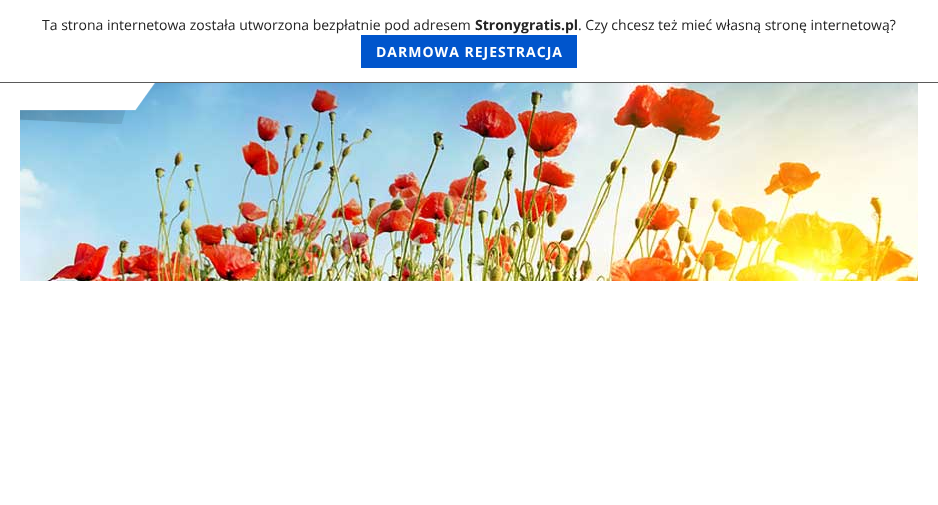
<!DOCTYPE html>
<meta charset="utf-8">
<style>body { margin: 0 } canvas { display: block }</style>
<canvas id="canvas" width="938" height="505"></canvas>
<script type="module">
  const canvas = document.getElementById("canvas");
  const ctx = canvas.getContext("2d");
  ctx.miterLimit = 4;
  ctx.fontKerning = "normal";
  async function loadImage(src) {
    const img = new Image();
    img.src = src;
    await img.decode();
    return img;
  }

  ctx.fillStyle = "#ffffff";
  ctx.fillRect(0, 0, 938, 505);
  ctx.fillStyle = "#5a5a5a";
  ctx.fillRect(0, 82, 938, 1);
  ctx.font = "14px Open Sans";
  ctx.fillStyle = "#232323";
  ctx.fillText("Ta strona internetowa została utworzona bezpłatnie pod adresem", 42, 30);
  ctx.font = "bold 14px Open Sans";
  ctx.fillText("Stronygratis.pl", 475, 30);
  ctx.font = "14px Open Sans";
  ctx.fillText(". Czy chcesz też mieć własną stronę internetową?", 578, 30);
  ctx.fillStyle = "#0055cc";
  ctx.fillRect(361, 35, 216, 33);
  ctx.letterSpacing = "1px";
  ctx.font = "bold 14px Open Sans";
  ctx.fillStyle = "#ffffff";
  ctx.fillText("DARMOWA REJESTRACJA", 376, 57);
  ctx.drawImage(await loadImage("img1.png"), 20, 83, 898, 198);
  ctx.drawImage(await loadImage("img2.png"), 20, 83, 135, 41);
</script>
